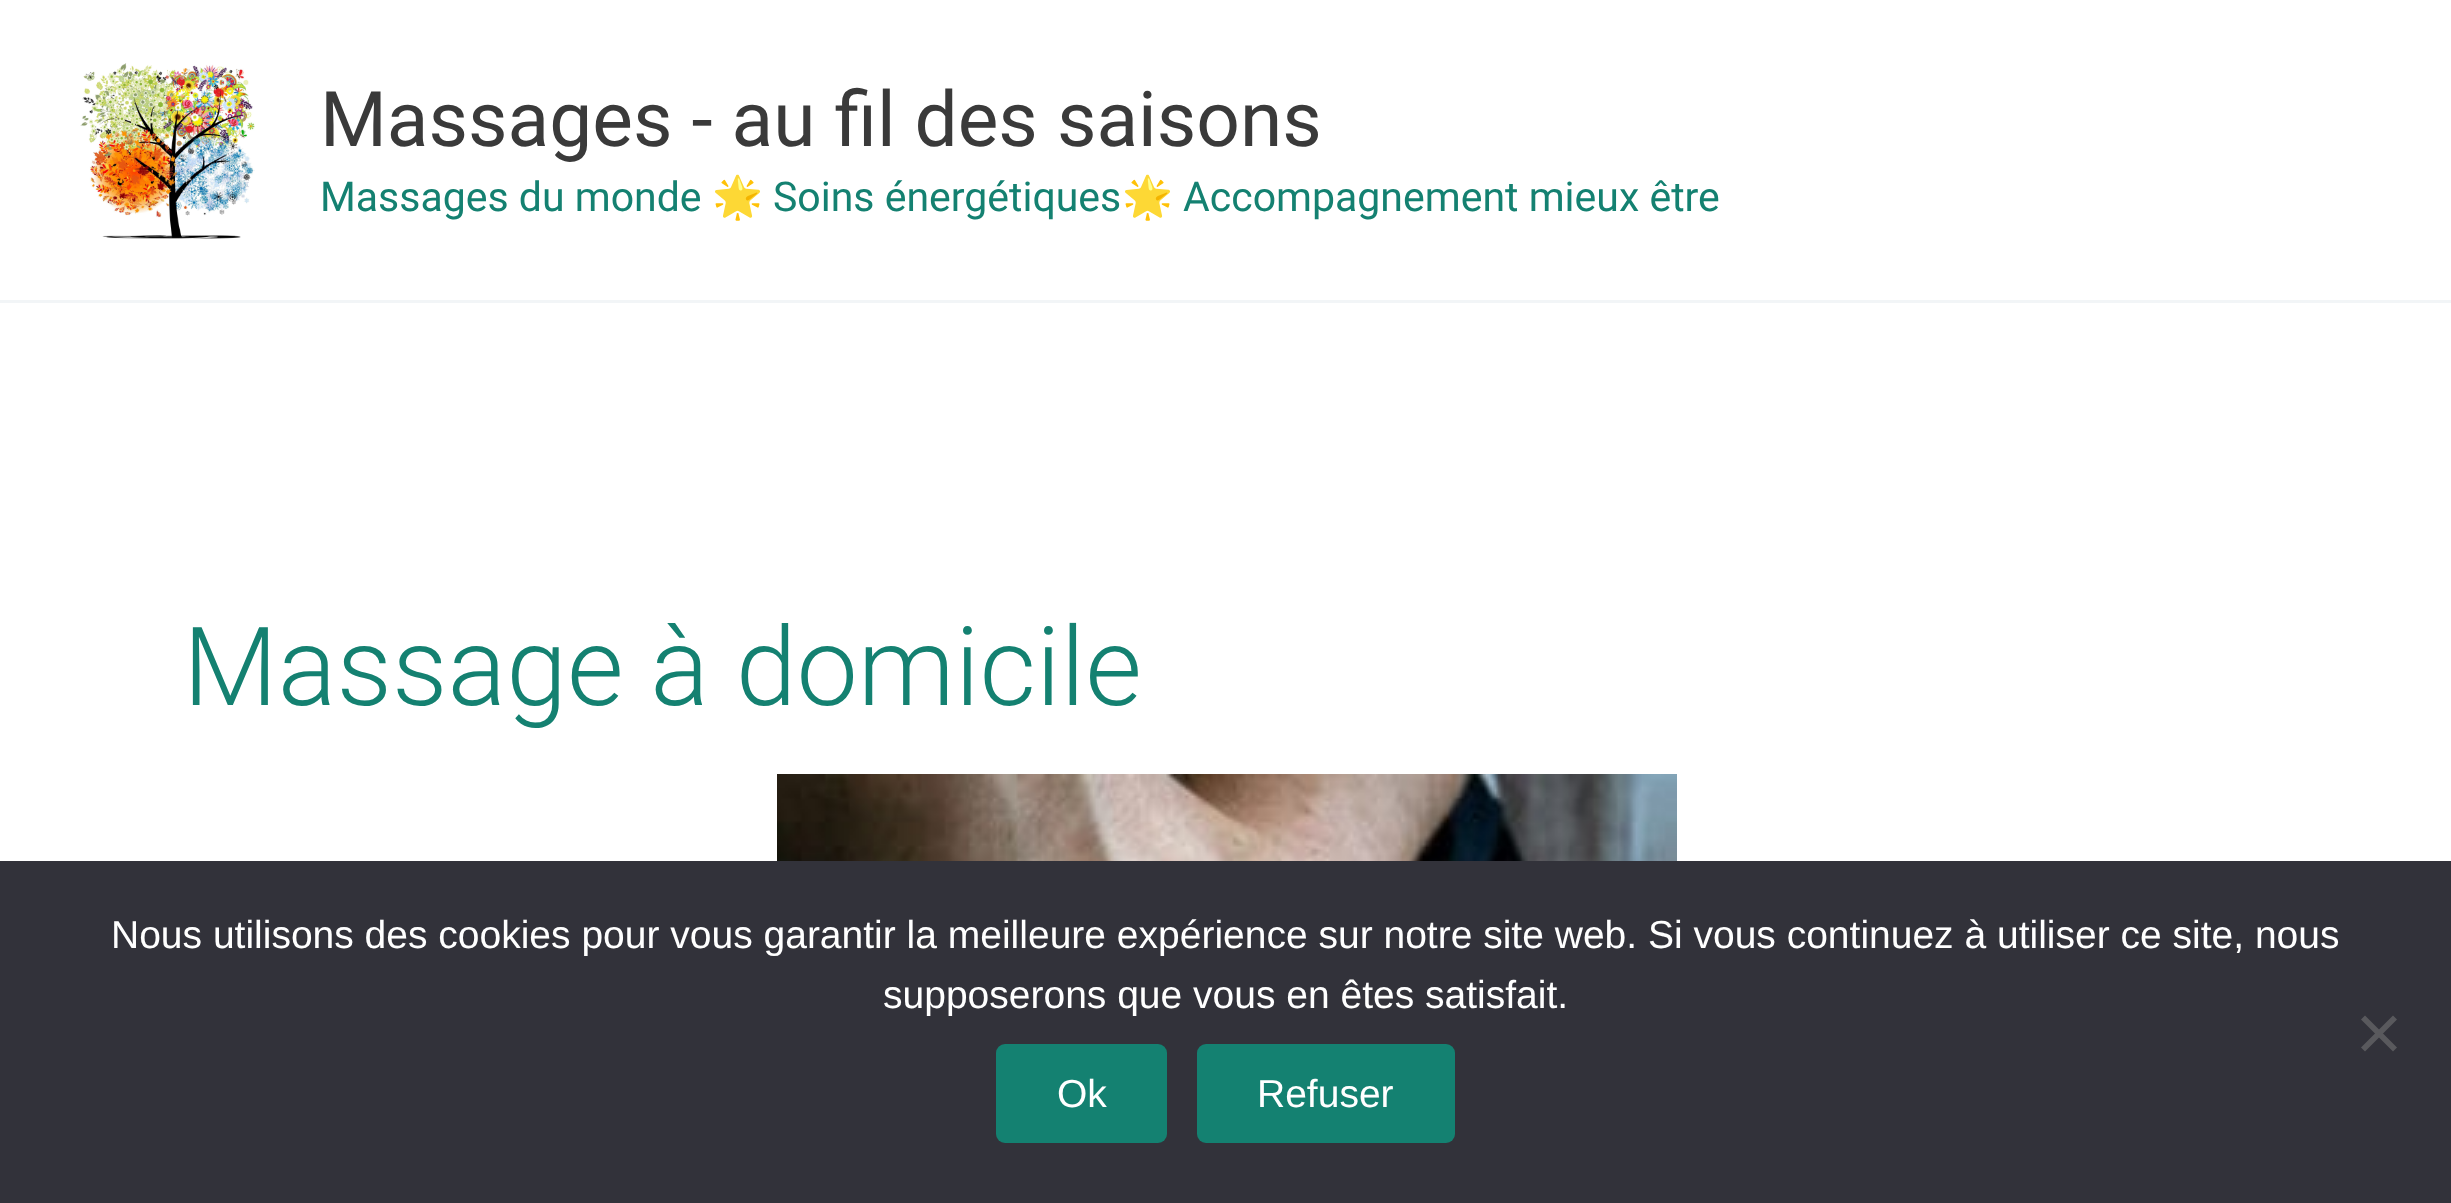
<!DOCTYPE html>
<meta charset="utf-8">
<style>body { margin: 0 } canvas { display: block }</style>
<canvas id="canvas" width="2451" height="1203"></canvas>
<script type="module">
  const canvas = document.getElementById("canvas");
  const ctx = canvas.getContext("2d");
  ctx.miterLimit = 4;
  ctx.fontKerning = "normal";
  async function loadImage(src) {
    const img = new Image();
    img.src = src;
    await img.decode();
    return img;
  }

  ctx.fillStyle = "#ffffff";
  ctx.fillRect(0, 0, 2451, 1203);
  ctx.fillStyle = "#f2f5f7";
  ctx.fillRect(0, 300, 2451, 3);
  ctx.drawImage(await loadImage("img1.png"), 80, 63, 175, 176);
  ctx.font = "76.6px Roboto";
  ctx.fillStyle = "#3a3a3a";
  ctx.fillText("Massages - au fil des saisons", 320, 146);
  ctx.font = "41px Roboto";
  ctx.fillStyle = "#148171";
  ctx.fillText("Massages du monde", 320, 211);
  ctx.font = "41px Noto Color Emoji";
  ctx.fillText("🌟", 712, 211);
  ctx.font = "41px Roboto";
  ctx.fillText("Soins énergétiques", 773, 211);
  ctx.font = "41px Noto Color Emoji";
  ctx.fillText("🌟", 1122, 211);
  ctx.font = "41px Roboto";
  ctx.fillText("Accompagnement mieux être", 1183, 211);
  ctx.font = "300 109.5px Roboto";
  ctx.fillText("Massage à domicile", 183, 705);
  ctx.drawImage(await loadImage("img2.png"), 777, 774, 900, 87);
  ctx.fillStyle = "#32323a";
  ctx.fillRect(0, 861, 2451, 342);
  ctx.font = "39px Liberation Sans";
  ctx.fillStyle = "#ffffff";
  ctx.fillText("Nous utilisons des cookies pour vous garantir la meilleure expérience sur notre site web. Si vous continuez à utiliser ce site, nous", 111, 948);
  ctx.fillText("supposerons que vous en êtes satisfait.", 883, 1008);
  ctx.fillStyle = "#59595d";
  ctx.beginPath();
  ctx.moveTo(2393, 1015.5);
  ctx.lineTo(2397, 1019.5);
  ctx.lineTo(2365, 1051.5);
  ctx.lineTo(2361, 1047.5);
  ctx.closePath();
  ctx.fill();
  ctx.beginPath();
  ctx.moveTo(2361, 1019.5);
  ctx.lineTo(2365, 1015.5);
  ctx.lineTo(2397, 1047.5);
  ctx.lineTo(2393, 1051.5);
  ctx.closePath();
  ctx.fill();
  ctx.fillStyle = "#148171";
  ctx.beginPath();
  ctx.roundRect(996, 1044, 171, 99, 9);
  ctx.fill();
  ctx.fillStyle = "#ffffff";
  ctx.fillText("Ok", 1057, 1107);
  ctx.fillStyle = "#148171";
  ctx.beginPath();
  ctx.roundRect(1197, 1044, 258, 99, 9);
  ctx.fill();
  ctx.fillStyle = "#ffffff";
  ctx.fillText("Refuser", 1257, 1107);
</script>
